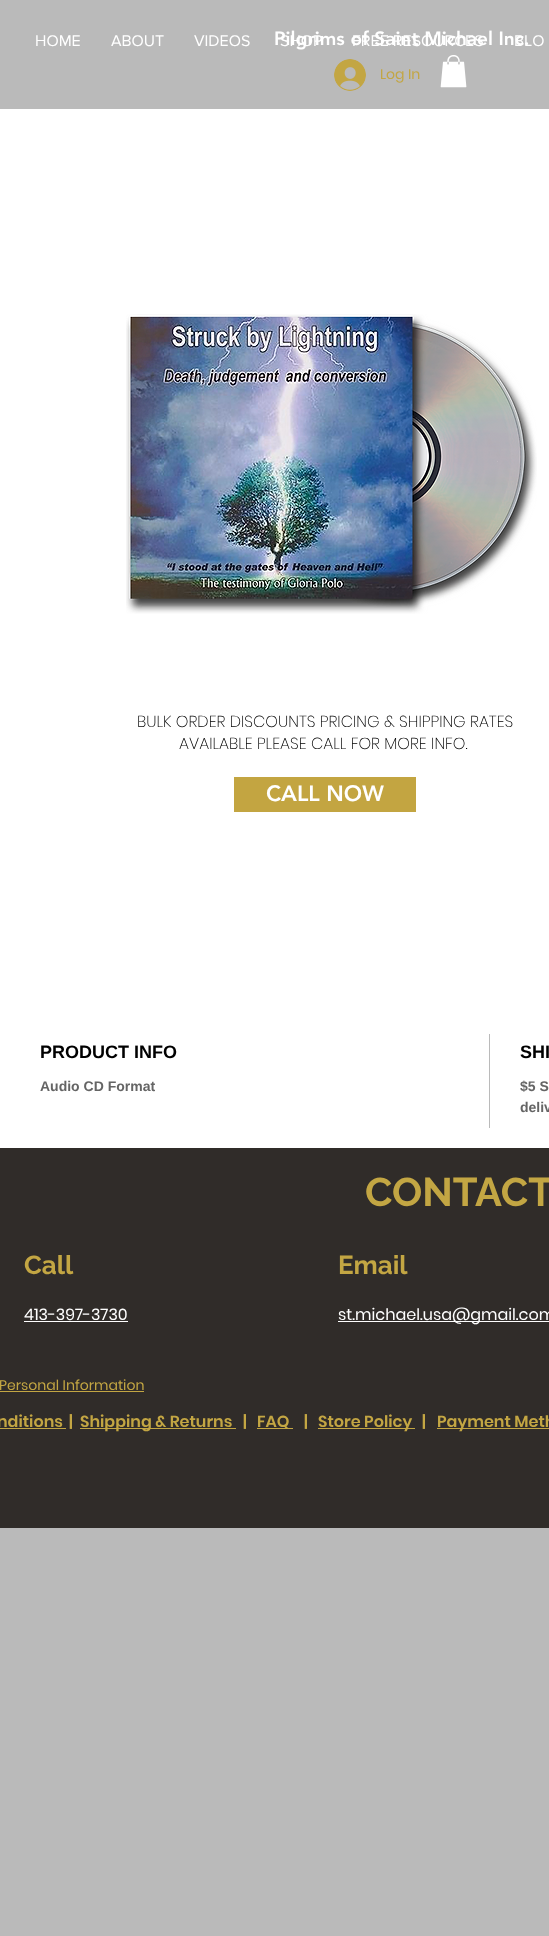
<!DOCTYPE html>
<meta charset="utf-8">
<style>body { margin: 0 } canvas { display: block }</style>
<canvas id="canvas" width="549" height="1936"></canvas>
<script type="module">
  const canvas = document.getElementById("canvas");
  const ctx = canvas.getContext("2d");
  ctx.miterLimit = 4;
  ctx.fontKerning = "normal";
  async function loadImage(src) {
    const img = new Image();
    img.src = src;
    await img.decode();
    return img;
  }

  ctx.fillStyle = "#bababa";
  ctx.fillRect(0, 0, 549, 1936);
  ctx.font = "16px 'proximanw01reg'";
  ctx.fillStyle = "#ffffff";
  ctx.fillText("SHOP", 280, 46);
  ctx.fillText("FREE RESOURCES", 352, 46);
  ctx.fillText("BLO", 514, 46);
  ctx.font = "900 19px 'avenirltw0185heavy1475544'";
  ctx.fillText("Pilgrims of Saint Michael Inc.", 274, 45);
  ctx.drawImage(await loadImage("img1.png"), 334, 59, 32, 32);
  ctx.font = "14px Poppins";
  ctx.fillStyle = "#c3a643";
  ctx.fillText("Log In", 380, 79);
  ctx.drawImage(await loadImage("img2.png"), 440, 55, 27, 33);
  ctx.font = "16px 'proximanw01reg'";
  ctx.fillStyle = "#ffffff";
  ctx.fillText("HOME", 35, 46);
  ctx.fillText("ABOUT", 111, 46);
  ctx.fillText("VIDEOS", 194, 46);
  ctx.fillRect(0, 109, 549, 1039);
  ctx.font = "200 16px Poppins";
  ctx.fillStyle = "#000000";
  ctx.fillText("BULK ORDER DISCOUNTS PRICING & SHIPPING RATES", 137, 727);
  ctx.fillText("AVAILABLE PLEASE CALL FOR MORE INFO.", 179, 749);
  ctx.fillStyle = "#c3a541";
  ctx.fillRect(234, 777, 182, 35);
  ctx.font = "900 22px 'avenirltw0185heavy1475544'";
  ctx.fillStyle = "#ffffff";
  ctx.fillText("CALL NOW", 266, 801);
  ctx.drawImage(await loadImage("img3.png"), 126, 314, 411, 300);
  ctx.fillStyle = "#bababa";
  ctx.fillRect(489, 1034, 1, 94);
  ctx.font = "bold 18px Liberation Sans";
  ctx.fillStyle = "#000000";
  ctx.fillText("PRODUCT INFO", 40, 1058);
  ctx.font = "bold 14px Liberation Sans";
  ctx.fillStyle = "#656565";
  ctx.fillText("Audio CD Format", 40, 1091);
  ctx.font = "bold 18px Liberation Sans";
  ctx.fillStyle = "#000000";
  ctx.fillText("SHI", 520, 1058);
  ctx.font = "bold 14px Liberation Sans";
  ctx.fillStyle = "#656565";
  ctx.fillText("$5 S", 520, 1091);
  ctx.fillText("deliv", 520, 1112);
  ctx.fillStyle = "#302c29";
  ctx.fillRect(0, 1148, 549, 380);
  ctx.font = "bold 40px Raleway";
  ctx.fillStyle = "#c3a643";
  ctx.fillText("CONTACT", 365, 1206);
  ctx.font = "bold 26px Raleway";
  ctx.fillText("Call", 24, 1274);
  ctx.fillText("Email", 338, 1274);
  ctx.font = "16px Poppins";
  ctx.fillStyle = "#ffffff";
  ctx.fillText("413-397-3730", 24, 1320);
  ctx.fillRect(24, 1321, 104, 1);
  ctx.fillRect(338, 1321, 211, 1);
  ctx.fillText("st.michael.usa@gmail.com", 338, 1320);
  ctx.font = "14px Poppins";
  ctx.fillStyle = "#c3a643";
  ctx.fillText("Personal Information", -1, 1390);
  ctx.fillRect(0, 1391, 144, 1);
  ctx.font = "600 16px Poppins";
  ctx.fillText("nditions", -3, 1427);
  ctx.fillRect(0, 1428, 66, 1);
  ctx.fillText("|", 69, 1427);
  ctx.fillRect(80, 1428, 156, 1);
  ctx.fillText("Shipping & Returns", 80, 1427);
  ctx.fillText("|", 243, 1427);
  ctx.fillRect(257, 1428, 36, 1);
  ctx.fillText("FAQ", 257, 1427);
  ctx.fillText("|", 304, 1427);
  ctx.fillRect(318, 1428, 97, 1);
  ctx.fillText("Store Policy", 318, 1427);
  ctx.fillText("|", 422, 1427);
  ctx.fillRect(437, 1428, 112, 1);
  ctx.fillText("Payment Meth", 437, 1427);
</script>
